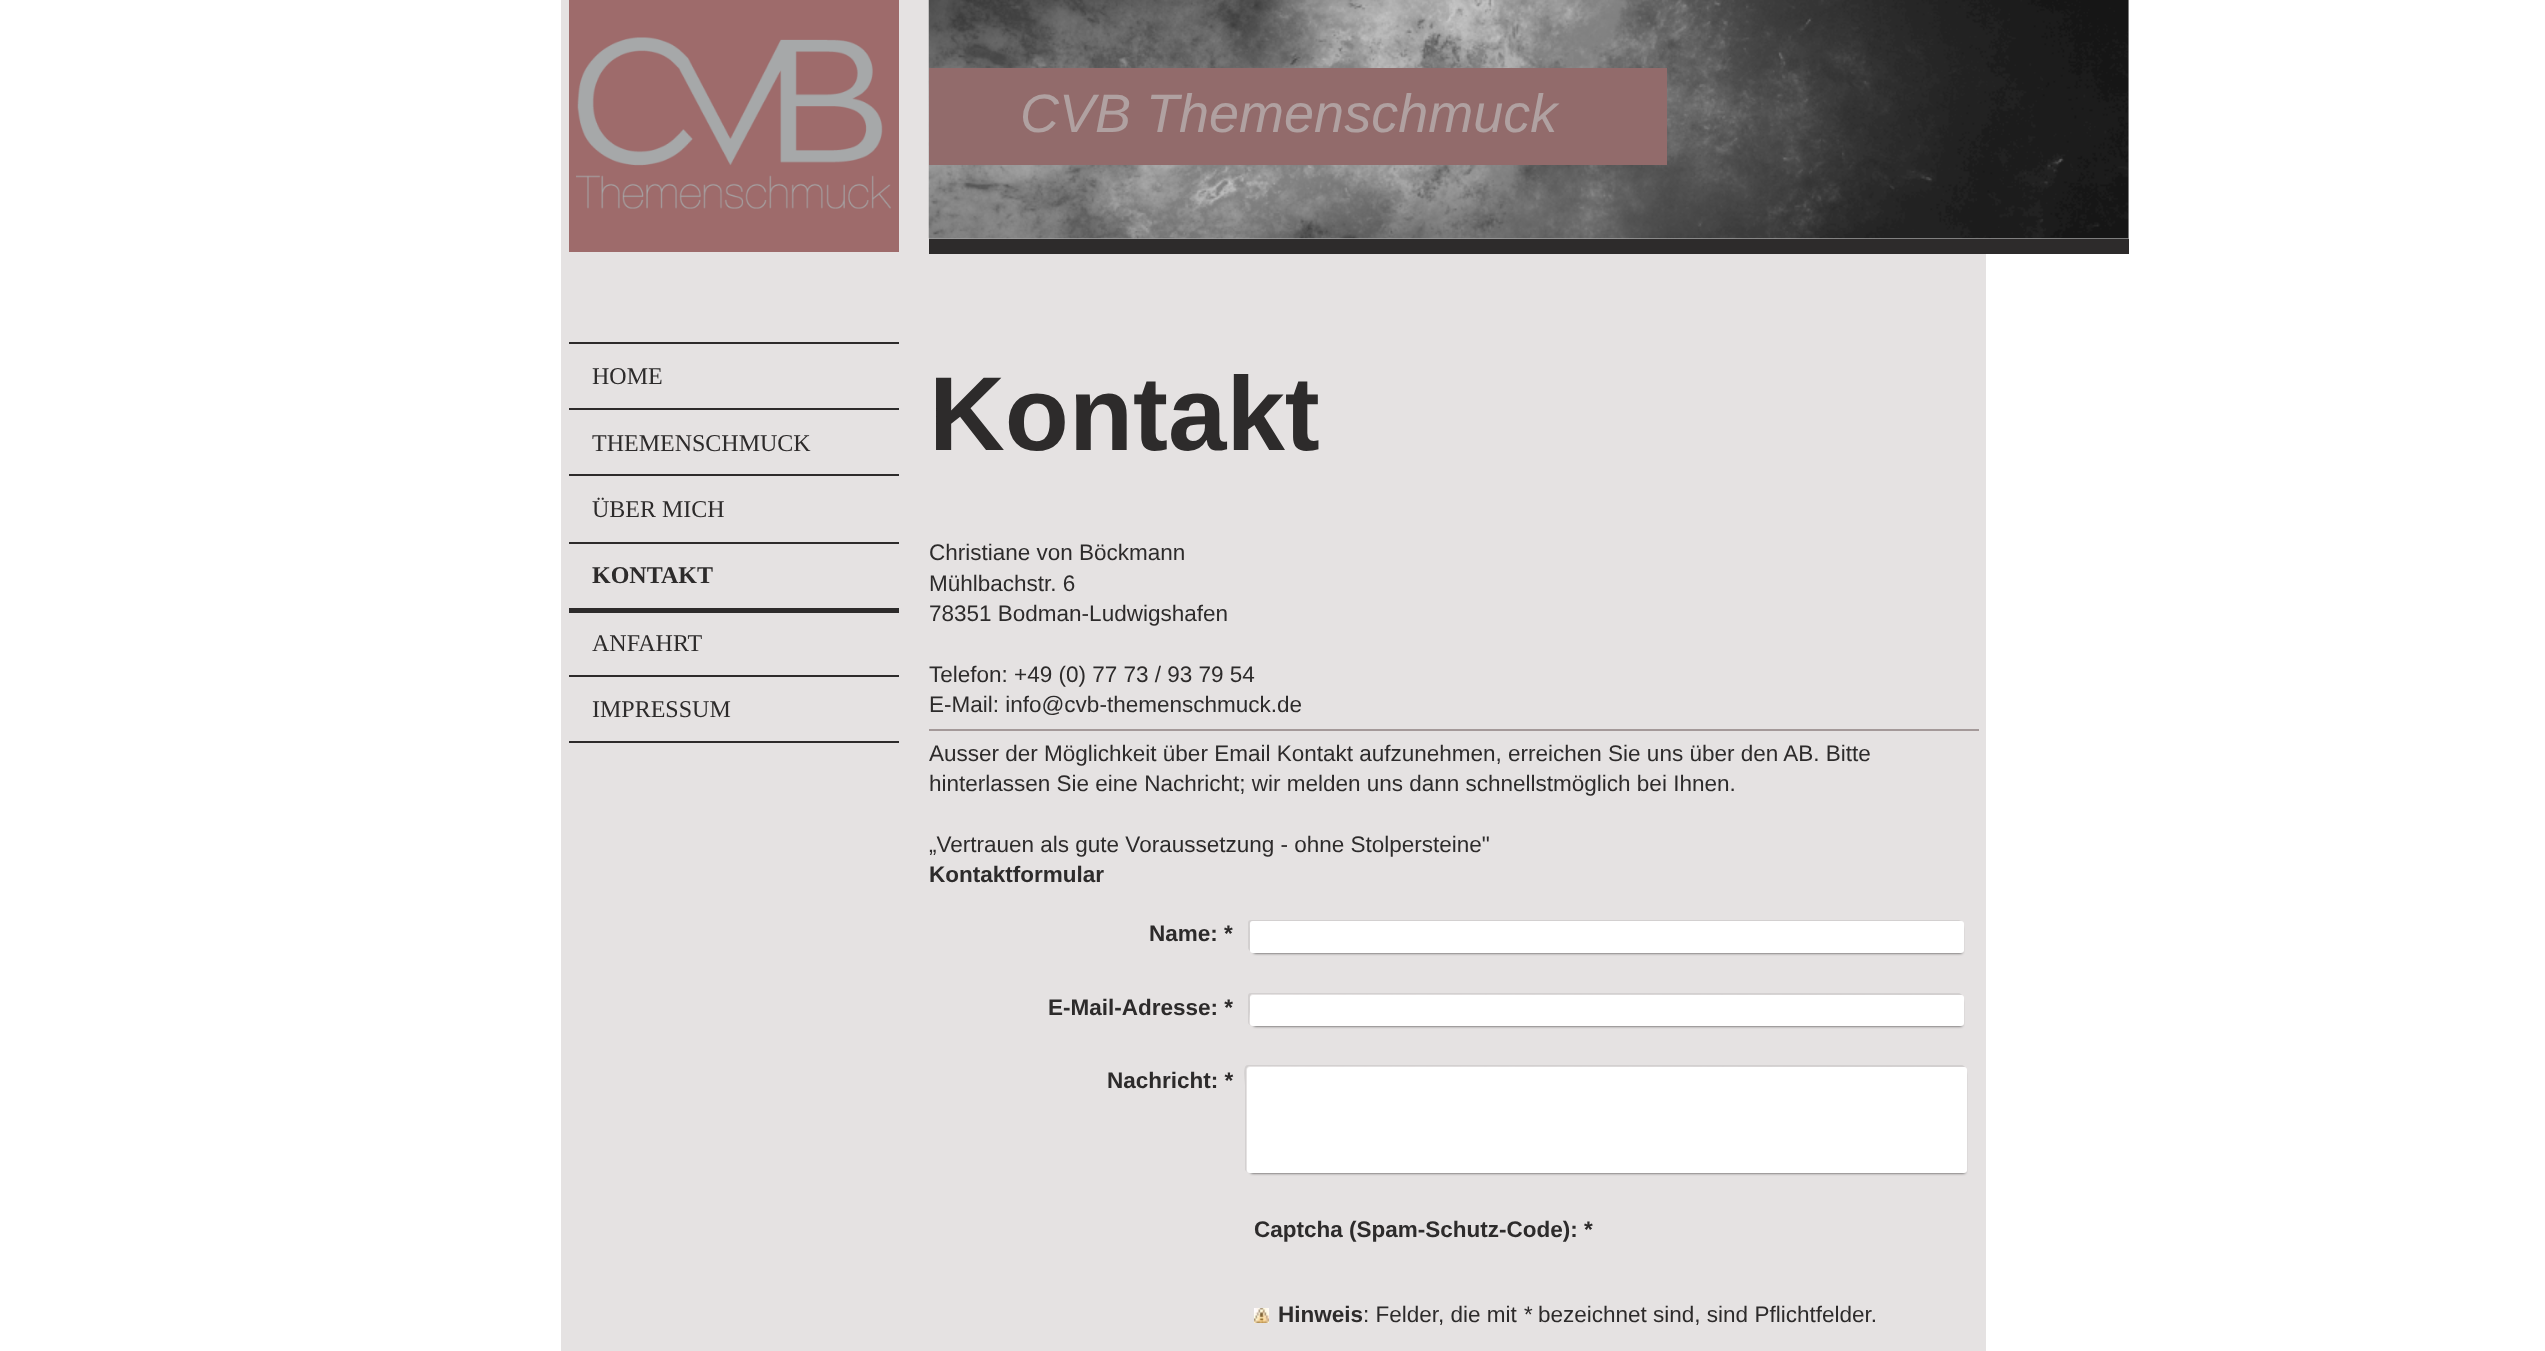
<!DOCTYPE html>
<meta charset="utf-8">
<style>body { margin: 0 } canvas { display: block }</style>
<canvas id="canvas" width="2545" height="1351"></canvas>
<script type="module">
  const canvas = document.getElementById("canvas");
  const ctx = canvas.getContext("2d");
  ctx.miterLimit = 4;
  ctx.fontKerning = "normal";
  async function loadImage(src) {
    const img = new Image();
    img.src = src;
    await img.decode();
    return img;
  }

  ctx.fillStyle = "#ffffff";
  ctx.fillRect(0, 0, 2545, 1351);
  ctx.fillStyle = "#e5e2e2";
  ctx.fillRect(561, 0, 1425, 1351);
  ctx.fillStyle = "#9e6b6b";
  ctx.fillRect(569, 0, 330, 252);
  ctx.drawImage(await loadImage("img1.png"), 576, 37, 315, 172);
  ctx.fillStyle = "#2d2b2b";
  ctx.fillRect(569, 342, 330, 2);
  ctx.fillRect(569, 408, 330, 2);
  ctx.font = "24px Liberation Serif";
  ctx.fillText("HOME", 592, 384);
  ctx.fillRect(569, 474, 330, 2);
  ctx.fillText("THEMENSCHMUCK", 592, 451);
  ctx.fillRect(569, 542, 330, 2);
  ctx.fillText("ÜBER MICH", 592, 517);
  ctx.fillRect(569, 608, 330, 5);
  ctx.font = "bold 24px Liberation Serif";
  ctx.fillText("KONTAKT", 592, 583);
  ctx.fillRect(569, 675, 330, 2);
  ctx.font = "24px Liberation Serif";
  ctx.fillText("ANFAHRT", 592, 651);
  ctx.fillRect(569, 741, 330, 2);
  ctx.fillText("IMPRESSUM", 592, 717);
  ctx.fillRect(929, 239, 1200, 15);
  ctx.fillStyle = "#a0a0a0";
  ctx.fillRect(929, 0, 1200, 239);
  ctx.drawImage(await loadImage("img2.png"), 928, 0, 1201, 239);
  ctx.fillStyle = "#926b6b";
  ctx.fillRect(929, 68, 738, 97);
  ctx.font = "italic 54px Liberation Sans";
  ctx.fillStyle = "#b0a1a1";
  ctx.fillText("CVB Themenschmuck", 1020, 132);
  ctx.font = "bold 105px Liberation Sans";
  ctx.fillStyle = "#2d2b2b";
  ctx.fillText("Kontakt", 929, 450);
  ctx.font = "22.5px Liberation Sans";
  ctx.fillText("Christiane von Böckmann", 929, 560);
  ctx.fillText("Mühlbachstr. 6", 929, 591);
  ctx.fillText("78351 Bodman-Ludwigshafen", 929, 621);
  ctx.fillText("Telefon: +49 (0) 77 73 / 93 79 54", 929, 682);
  ctx.fillText("E-Mail: info@cvb-themenschmuck.de", 929, 712);
  ctx.fillStyle = "#a49999";
  ctx.fillRect(929, 729, 1050, 2);
  ctx.fillStyle = "#2d2b2b";
  ctx.fillText("Ausser der Möglichkeit über Email Kontakt aufzunehmen, erreichen Sie uns über den AB. Bitte", 929, 761);
  ctx.fillText("hinterlassen Sie eine Nachricht; wir melden uns dann schnellstmöglich bei Ihnen.", 929, 791);
  ctx.fillText("„Vertrauen als gute Voraussetzung - ohne Stolpersteine\"", 929, 852);
  ctx.font = "bold 22.5px Liberation Sans";
  ctx.fillText("Kontaktformular", 929, 882);
  ctx.fillStyle = "#d3d0d0";
  ctx.beginPath();
  ctx.moveTo(1251, 920);
  ctx.bezierCurveTo(1249, 920, 1248, 921, 1248, 923);
  ctx.lineTo(1248, 948);
  ctx.bezierCurveTo(1248, 949, 1249, 950, 1250, 951);
  ctx.lineTo(1250, 928);
  ctx.bezierCurveTo(1250, 926, 1249, 921, 1252, 921);
  ctx.lineTo(1961, 921);
  ctx.lineTo(1959, 920);
  ctx.closePath();
  ctx.fill();
  ctx.fillStyle = "rgba(0, 0, 0, 0.8)";
  ctx.filter = "blur(1.5px)";
  ctx.beginPath();
  ctx.rect(1254, 927, 708, 26);
  ctx.fill();
  ctx.filter = "none";
  ctx.fillStyle = "#2d2b2b";
  ctx.fillText("Name: *", 1149, 941);
  ctx.fillStyle = "#ffffff";
  ctx.beginPath();
  ctx.roundRect(1250, 921, 714, 32, 3);
  ctx.fill();
  ctx.fillStyle = "#d3d0d0";
  ctx.beginPath();
  ctx.moveTo(1251, 993);
  ctx.bezierCurveTo(1249, 993, 1248, 994, 1248, 996);
  ctx.lineTo(1248, 1022);
  ctx.bezierCurveTo(1248, 1023, 1249, 1025, 1250, 1025);
  ctx.bezierCurveTo(1248, 1023, 1250, 1013, 1250, 1010);
  ctx.lineTo(1250, 1002);
  ctx.bezierCurveTo(1250, 999, 1249, 995, 1252, 994);
  ctx.lineTo(1962, 995);
  ctx.bezierCurveTo(1961, 994, 1960, 993, 1959, 993);
  ctx.closePath();
  ctx.fill();
  ctx.fillStyle = "rgba(0, 0, 0, 0.8)";
  ctx.filter = "blur(1.5px)";
  ctx.beginPath();
  ctx.rect(1254, 1001, 708, 25);
  ctx.fill();
  ctx.filter = "none";
  ctx.fillStyle = "#2d2b2b";
  ctx.fillText("E-Mail-Adresse: *", 1048, 1015);
  ctx.fillStyle = "#ffffff";
  ctx.beginPath();
  ctx.roundRect(1250, 995, 714, 31, 3);
  ctx.fill();
  ctx.fillStyle = "#d3d0d0";
  ctx.beginPath();
  ctx.moveTo(1248, 1065);
  ctx.bezierCurveTo(1242, 1065, 1245, 1079, 1245, 1085);
  ctx.lineTo(1245, 1170);
  ctx.lineTo(1247, 1172);
  ctx.lineTo(1246, 1170);
  ctx.lineTo(1246, 1070);
  ctx.bezierCurveTo(1246, 1068, 1248, 1066, 1250, 1066);
  ctx.lineTo(1965, 1067);
  ctx.bezierCurveTo(1964, 1066, 1963, 1065, 1962, 1065);
  ctx.closePath();
  ctx.fill();
  ctx.fillStyle = "rgba(0, 0, 0, 0.8)";
  ctx.filter = "blur(1.5px)";
  ctx.beginPath();
  ctx.rect(1251, 1073, 714, 100);
  ctx.fill();
  ctx.filter = "none";
  ctx.fillStyle = "#2d2b2b";
  ctx.fillText("Nachricht: *", 1107, 1088);
  ctx.fillStyle = "#ffffff";
  ctx.beginPath();
  ctx.roundRect(1247, 1067, 720, 106, 3);
  ctx.fill();
  ctx.fillStyle = "#2d2b2b";
  ctx.fillText("Captcha (Spam-Schutz-Code): *", 1254, 1237);
  ctx.drawImage(await loadImage("img3.png"), 1254, 1308, 15, 15);
  ctx.fillText("Hinweis", 1278, 1322);
  ctx.font = "22.5px Liberation Sans";
  ctx.fillText(": Felder, die mit", 1363, 1322);
  ctx.font = "italic 22.5px Liberation Sans";
  ctx.fillText("*", 1523, 1322);
  ctx.font = "22.5px Liberation Sans";
  ctx.fillText("bezeichnet sind, sind Pflichtfelder.", 1538, 1322);
</script>
